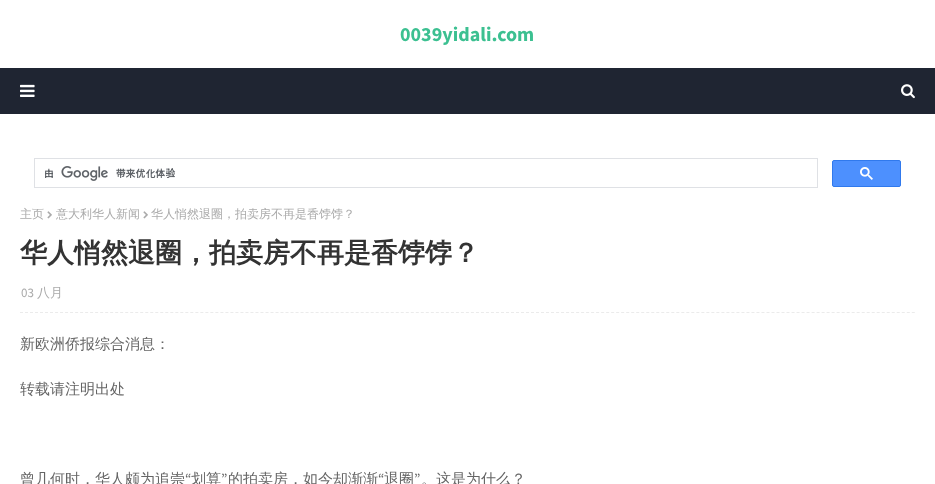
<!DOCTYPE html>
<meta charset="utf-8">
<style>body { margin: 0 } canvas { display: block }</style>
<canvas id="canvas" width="935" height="484"></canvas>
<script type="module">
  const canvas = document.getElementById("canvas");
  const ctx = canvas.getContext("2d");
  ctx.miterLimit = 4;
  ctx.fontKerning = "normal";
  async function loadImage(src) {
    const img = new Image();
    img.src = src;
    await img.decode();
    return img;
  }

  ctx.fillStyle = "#ffffff";
  ctx.fillRect(0, 0, 935, 484);
  ctx.font = "bold 20px Source Sans Pro";
  ctx.fillStyle = "#3cc091";
  ctx.fillText("0039yidali.com", 400, 41);
  ctx.fillStyle = "#1f2532";
  ctx.fillRect(0, 68, 935, 46);
  ctx.drawImage(await loadImage("img1.png"), 20, 84, 15, 13);
  ctx.drawImage(await loadImage("img2.png"), 901, 84, 14, 15);
  ctx.strokeStyle = "#dfe1e5";
  ctx.strokeRect(34.5, 158.5, 783, 29);
  ctx.drawImage(await loadImage("img3.png"), 45, 166, 131, 15);
  ctx.fillStyle = "#4d90fe";
  ctx.beginPath();
  ctx.roundRect(832.5, 160.5, 68, 26, 1.5);
  ctx.fill();
  ctx.strokeStyle = "#3079ed";
  ctx.stroke();
  ctx.drawImage(await loadImage("img4.png"), 860, 167, 13, 13);
  ctx.font = "500 12px WenQuanYi Zen Hei";
  ctx.fillStyle = "#aaaaaa";
  ctx.fillText("主页", 20, 218);
  ctx.drawImage(await loadImage("img5.png"), 47, 211, 5, 8);
  ctx.fillText("意大利华人新闻", 56, 218);
  ctx.drawImage(await loadImage("img5.png"), 143, 211, 5, 8);
  ctx.fillText("华人悄然退圈，拍卖房不再是香饽饽？", 151, 218);
  ctx.font = "bold 27px WenQuanYi Zen Hei";
  ctx.fillStyle = "#333333";
  ctx.fillText("华人悄然退圈，拍卖房不再是香饽饽？", 20, 262);
  ctx.font = "13px Source Sans Pro";
  ctx.fillStyle = "#aaaaaa";
  ctx.fillText("03", 21, 297);
  ctx.font = "500 13px WenQuanYi Zen Hei";
  ctx.fillText("八月", 37, 297);
  ctx.beginPath();
  ctx.moveTo(20, 312.5);
  ctx.lineTo(915, 312.5);
  ctx.strokeStyle = "#ebebeb";
  ctx.setLineDash([3, 2.01]);
  ctx.stroke();
  ctx.font = "500 15px WenQuanYi Zen Hei";
  ctx.fillStyle = "#656565";
  ctx.fillText("新欧洲侨报综合消息：", 20, 349);
  ctx.fillText("转载请注明出处", 20, 394);
  ctx.fillText("曾几何时，华人颇为追崇", 20, 484);
  ctx.font = "15px Source Sans Pro";
  ctx.fillText("“", 185, 484);
  ctx.font = "500 15px WenQuanYi Zen Hei";
  ctx.fillText("划算", 191, 484);
  ctx.font = "15px Source Sans Pro";
  ctx.fillText("”", 221, 484);
  ctx.font = "500 15px WenQuanYi Zen Hei";
  ctx.fillText("的拍卖房，如今却渐渐", 228, 484);
  ctx.font = "15px Source Sans Pro";
  ctx.fillText("“", 378, 484);
  ctx.font = "500 15px WenQuanYi Zen Hei";
  ctx.fillText("退圈", 384, 484);
  ctx.font = "15px Source Sans Pro";
  ctx.fillText("”", 414, 484);
  ctx.font = "500 15px WenQuanYi Zen Hei";
  ctx.fillText("。这是为什么？", 421, 484);
</script>
